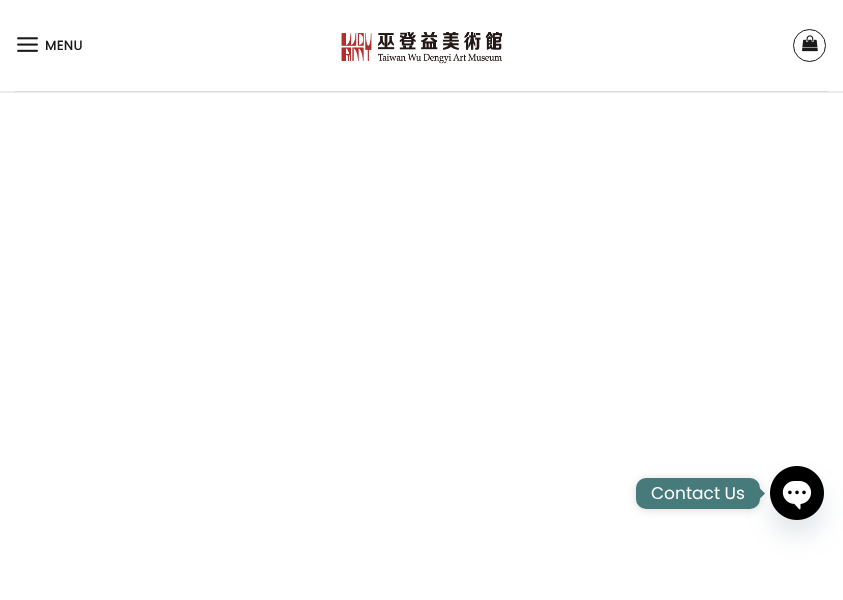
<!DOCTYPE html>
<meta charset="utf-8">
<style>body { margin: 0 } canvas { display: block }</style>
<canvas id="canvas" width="843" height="600"></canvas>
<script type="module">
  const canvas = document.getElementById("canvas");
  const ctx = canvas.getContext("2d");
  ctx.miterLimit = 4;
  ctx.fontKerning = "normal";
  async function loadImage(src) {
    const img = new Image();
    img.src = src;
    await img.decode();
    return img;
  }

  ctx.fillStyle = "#ffffff";
  ctx.fillRect(0, 0, 843, 600);
  ctx.drawImage(await loadImage("img1.png"), 17, 37, 21, 15);
  ctx.letterSpacing = "0.5px";
  ctx.font = "bold 13px Poppins";
  ctx.fillStyle = "#191919";
  ctx.fillText("MENU", 45, 50);
  ctx.drawImage(await loadImage("img2.png"), 341, 32, 161, 32);
  ctx.beginPath();
  ctx.arc(809.5, 45.5, 16, 0, Math.PI * 2);
  ctx.strokeStyle = "#191919";
  ctx.stroke();
  ctx.drawImage(await loadImage("img3.png"), 802, 35, 16, 17);
  ctx.fillStyle = "#ececec";
  ctx.fillRect(0, 91, 843, 2);
  ctx.fillStyle = "#dadada";
  ctx.fillRect(15, 91, 813, 1);
  ctx.fillStyle = "rgba(0, 0, 0, 0.15)";
  ctx.filter = "blur(4px)";
  ctx.beginPath();
  ctx.roundRect(636, 479, 124, 31, 10);
  ctx.fill();
  ctx.filter = "none";
  ctx.fillStyle = "#477a7b";
  ctx.beginPath();
  ctx.roundRect(636, 478, 124, 31, 10);
  ctx.fill();
  ctx.letterSpacing = "0px";
  ctx.font = "17px Poppins";
  ctx.fillStyle = "#ffffff";
  ctx.fillText("Contact Us", 651, 499);
  ctx.fillStyle = "#477a7b";
  ctx.beginPath();
  ctx.moveTo(760, 498.5);
  ctx.lineTo(760, 488.5);
  ctx.lineTo(765, 493.5);
  ctx.closePath();
  ctx.fill();
  ctx.fillStyle = "rgba(73, 104, 126, 0.16)";
  ctx.filter = "blur(12px)";
  ctx.beginPath();
  ctx.roundRect(770, 482, 54, 54, 27);
  ctx.fill();
  ctx.filter = "none";
  ctx.drawImage(await loadImage("img4.png"), 770, 466, 54, 54);
</script>
